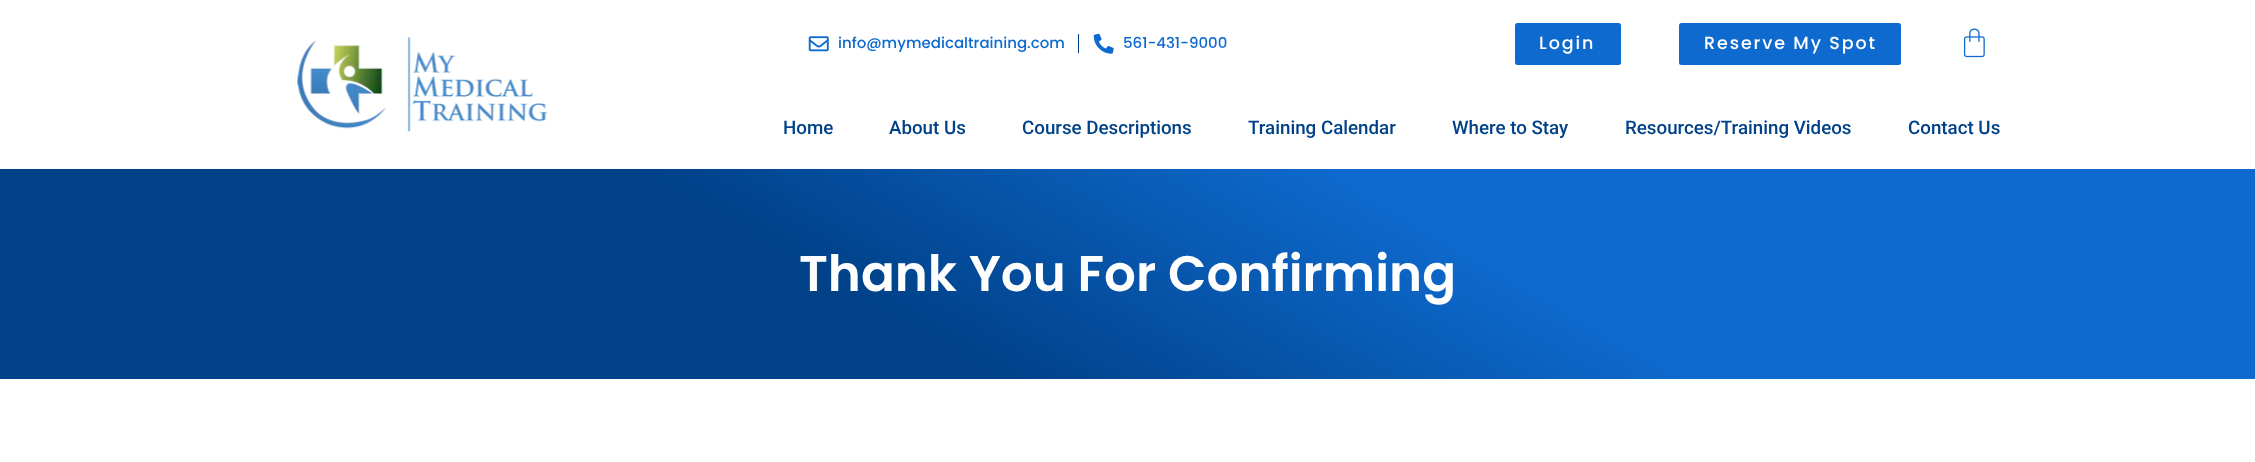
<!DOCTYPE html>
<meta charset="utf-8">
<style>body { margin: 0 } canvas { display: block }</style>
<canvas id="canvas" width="2255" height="462"></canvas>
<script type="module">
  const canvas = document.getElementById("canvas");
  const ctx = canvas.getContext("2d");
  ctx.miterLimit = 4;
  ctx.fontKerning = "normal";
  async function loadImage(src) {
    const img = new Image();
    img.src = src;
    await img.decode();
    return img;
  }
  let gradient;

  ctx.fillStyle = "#ffffff";
  ctx.fillRect(0, 0, 2255, 462);
  ctx.drawImage(await loadImage("img1.png"), 297, 37, 251, 95);
  ctx.drawImage(await loadImage("img2.png"), 808, 36, 21, 16);
  ctx.font = "500 15px Poppins";
  ctx.fillStyle = "#0e6ace";
  ctx.fillText("info@mymedicaltraining.com", 838, 48);
  ctx.fillStyle = "#004188";
  ctx.fillRect(1078, 34, 1, 19);
  ctx.drawImage(await loadImage("img3.png"), 1093, 33, 21, 21);
  ctx.fillStyle = "#0e6ace";
  ctx.fillText("561-431-9000", 1123, 48);
  ctx.beginPath();
  ctx.roundRect(1515, 23, 106, 42, 2.5);
  ctx.fill();
  ctx.letterSpacing = "1.9px";
  ctx.font = "500 17.5px Poppins";
  ctx.fillStyle = "#ffffff";
  ctx.fillText("Login", 1539, 49);
  ctx.fillStyle = "#0e6ace";
  ctx.beginPath();
  ctx.roundRect(1679, 23, 222, 42, 2.5);
  ctx.fill();
  ctx.fillStyle = "#ffffff";
  ctx.fillText("Reserve My Spot", 1704, 49);
  ctx.drawImage(await loadImage("img4.png"), 1963, 28, 22, 30);
  ctx.letterSpacing = "0px";
  ctx.font = "500 18.75px Roboto";
  ctx.fillStyle = "#004188";
  ctx.fillText("Home", 783, 134);
  ctx.fillText("About Us", 889, 134);
  ctx.fillText("Course Descriptions", 1022, 134);
  ctx.fillText("Training Calendar", 1248, 134);
  ctx.fillText("Where to Stay", 1452, 134);
  ctx.fillText("Resources/Training Videos", 1625, 134);
  ctx.fillText("Contact Us", 1908, 134);
  gradient = ctx.createLinearGradient(1455, -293, 800, 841);
  gradient.addColorStop(0.35, "#0e6ace");
  gradient.addColorStop(0.62, "#004188");
  ctx.fillStyle = gradient;
  ctx.fillRect(0, 169, 2255, 210);
  ctx.font = "600 50px Poppins";
  ctx.fillStyle = "#ffffff";
  ctx.fillText("Thank You For Confirming", 799, 291);
</script>
